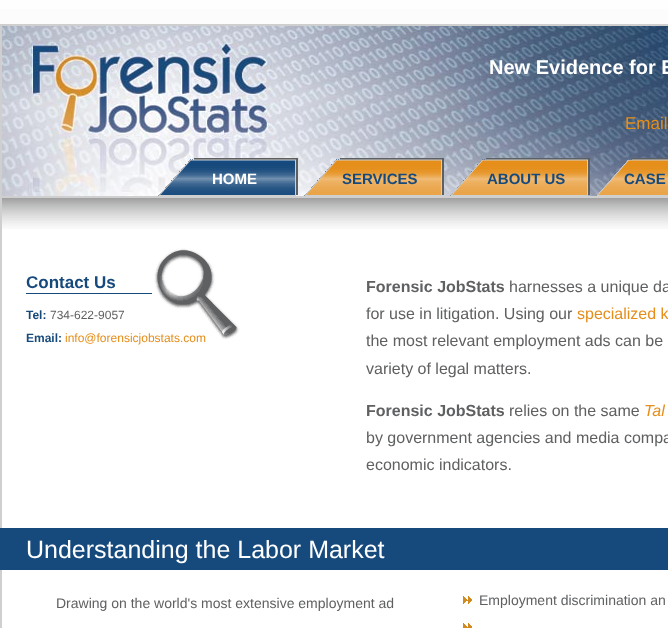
<!DOCTYPE html>
<meta charset="utf-8">
<style>body { margin: 0 } canvas { display: block }</style>
<canvas id="canvas" width="668" height="628"></canvas>
<script type="module">
  const canvas = document.getElementById("canvas");
  const ctx = canvas.getContext("2d");
  ctx.miterLimit = 4;
  ctx.fontKerning = "normal";
  async function loadImage(src) {
    const img = new Image();
    img.src = src;
    await img.decode();
    return img;
  }

  ctx.fillStyle = "#ffffff";
  ctx.fillRect(0, 0, 668, 628);
  ctx.drawImage(await loadImage("img1.png"), 0, 0, 668, 24);
  ctx.fillStyle = "#cfcfd0";
  ctx.fillRect(0, 24, 668, 2);
  ctx.fillRect(0, 24, 2, 604);
  ctx.drawImage(await loadImage("img2.png"), 2, 26, 666, 170);
  ctx.fillRect(2, 196, 666, 2);
  ctx.font = "bold 20px Liberation Sans";
  ctx.fillStyle = "#ffffff";
  ctx.fillText("New Evidence for E", 489, 74);
  ctx.font = "17px Liberation Sans";
  ctx.fillStyle = "#e58e1a";
  ctx.fillText("Email", 625, 129);
  ctx.drawImage(await loadImage("img3.png"), 2, 198, 666, 31);
  ctx.drawImage(await loadImage("img4.png"), 158, 158, 140, 38);
  ctx.font = "bold 15px Liberation Sans";
  ctx.fillStyle = "#ffffff";
  ctx.fillText("HOME", 212, 184);
  ctx.drawImage(await loadImage("img5.png"), 304, 158, 140, 38);
  ctx.fillStyle = "#174a7c";
  ctx.fillText("SERVICES", 342, 184);
  ctx.drawImage(await loadImage("img6.png"), 450, 158, 140, 38);
  ctx.fillText("ABOUT US", 487, 184);
  ctx.drawImage(await loadImage("img7.png"), 596, 158, 72, 38);
  ctx.fillText("CASE", 624, 184);
  ctx.fillRect(26, 293, 126, 1);
  ctx.font = "bold 17px Liberation Sans";
  ctx.fillText("Contact Us", 26, 288);
  ctx.drawImage(await loadImage("img8.png"), 152, 248, 88, 92);
  ctx.font = "bold 12px Liberation Sans";
  ctx.fillText("Tel:", 26, 319);
  ctx.font = "12px Liberation Sans";
  ctx.fillStyle = "#5f6062";
  ctx.fillText("734-622-9057", 50, 319);
  ctx.font = "bold 12px Liberation Sans";
  ctx.fillStyle = "#174a7c";
  ctx.fillText("Email:", 26, 342);
  ctx.font = "12px Liberation Sans";
  ctx.fillStyle = "#e58e1a";
  ctx.fillText("info@forensicjobstats.com", 65, 342);
  ctx.font = "bold 16px Liberation Sans";
  ctx.fillStyle = "#5f6062";
  ctx.fillText("Forensic JobStats", 366, 292);
  ctx.font = "16px Liberation Sans";
  ctx.fillText("harnesses a unique da", 509, 292);
  ctx.fillText("for use in litigation. Using our", 366, 319);
  ctx.fillStyle = "#e58e1a";
  ctx.fillText("specialized k", 577, 319);
  ctx.fillStyle = "#5f6062";
  ctx.fillText("the most relevant employment ads can be", 366, 346);
  ctx.fillText("variety of legal matters.", 366, 374);
  ctx.font = "bold 16px Liberation Sans";
  ctx.fillText("Forensic JobStats", 366, 416);
  ctx.font = "16px Liberation Sans";
  ctx.fillText("relies on the same", 509, 416);
  ctx.font = "italic 16px Liberation Sans";
  ctx.fillStyle = "#e58e1a";
  ctx.fillText("Tal", 644, 416);
  ctx.font = "16px Liberation Sans";
  ctx.fillStyle = "#5f6062";
  ctx.fillText("by government agencies and media compa", 366, 443);
  ctx.fillText("economic indicators.", 366, 470);
  ctx.fillStyle = "#174a7c";
  ctx.fillRect(0, 528, 668, 42);
  ctx.font = "25px Liberation Sans";
  ctx.fillStyle = "#ffffff";
  ctx.fillText("Understanding the Labor Market", 26, 558);
  ctx.font = "14px Liberation Sans";
  ctx.fillStyle = "#5f6062";
  ctx.fillText("Drawing on the world's most extensive employment ad", 56, 608);
  ctx.drawImage(await loadImage("img9.png"), 463, 596, 9, 8);
  ctx.fillText("Employment discrimination an", 479, 605);
  ctx.drawImage(await loadImage("img10.png"), 463, 623, 9, 5);
</script>
